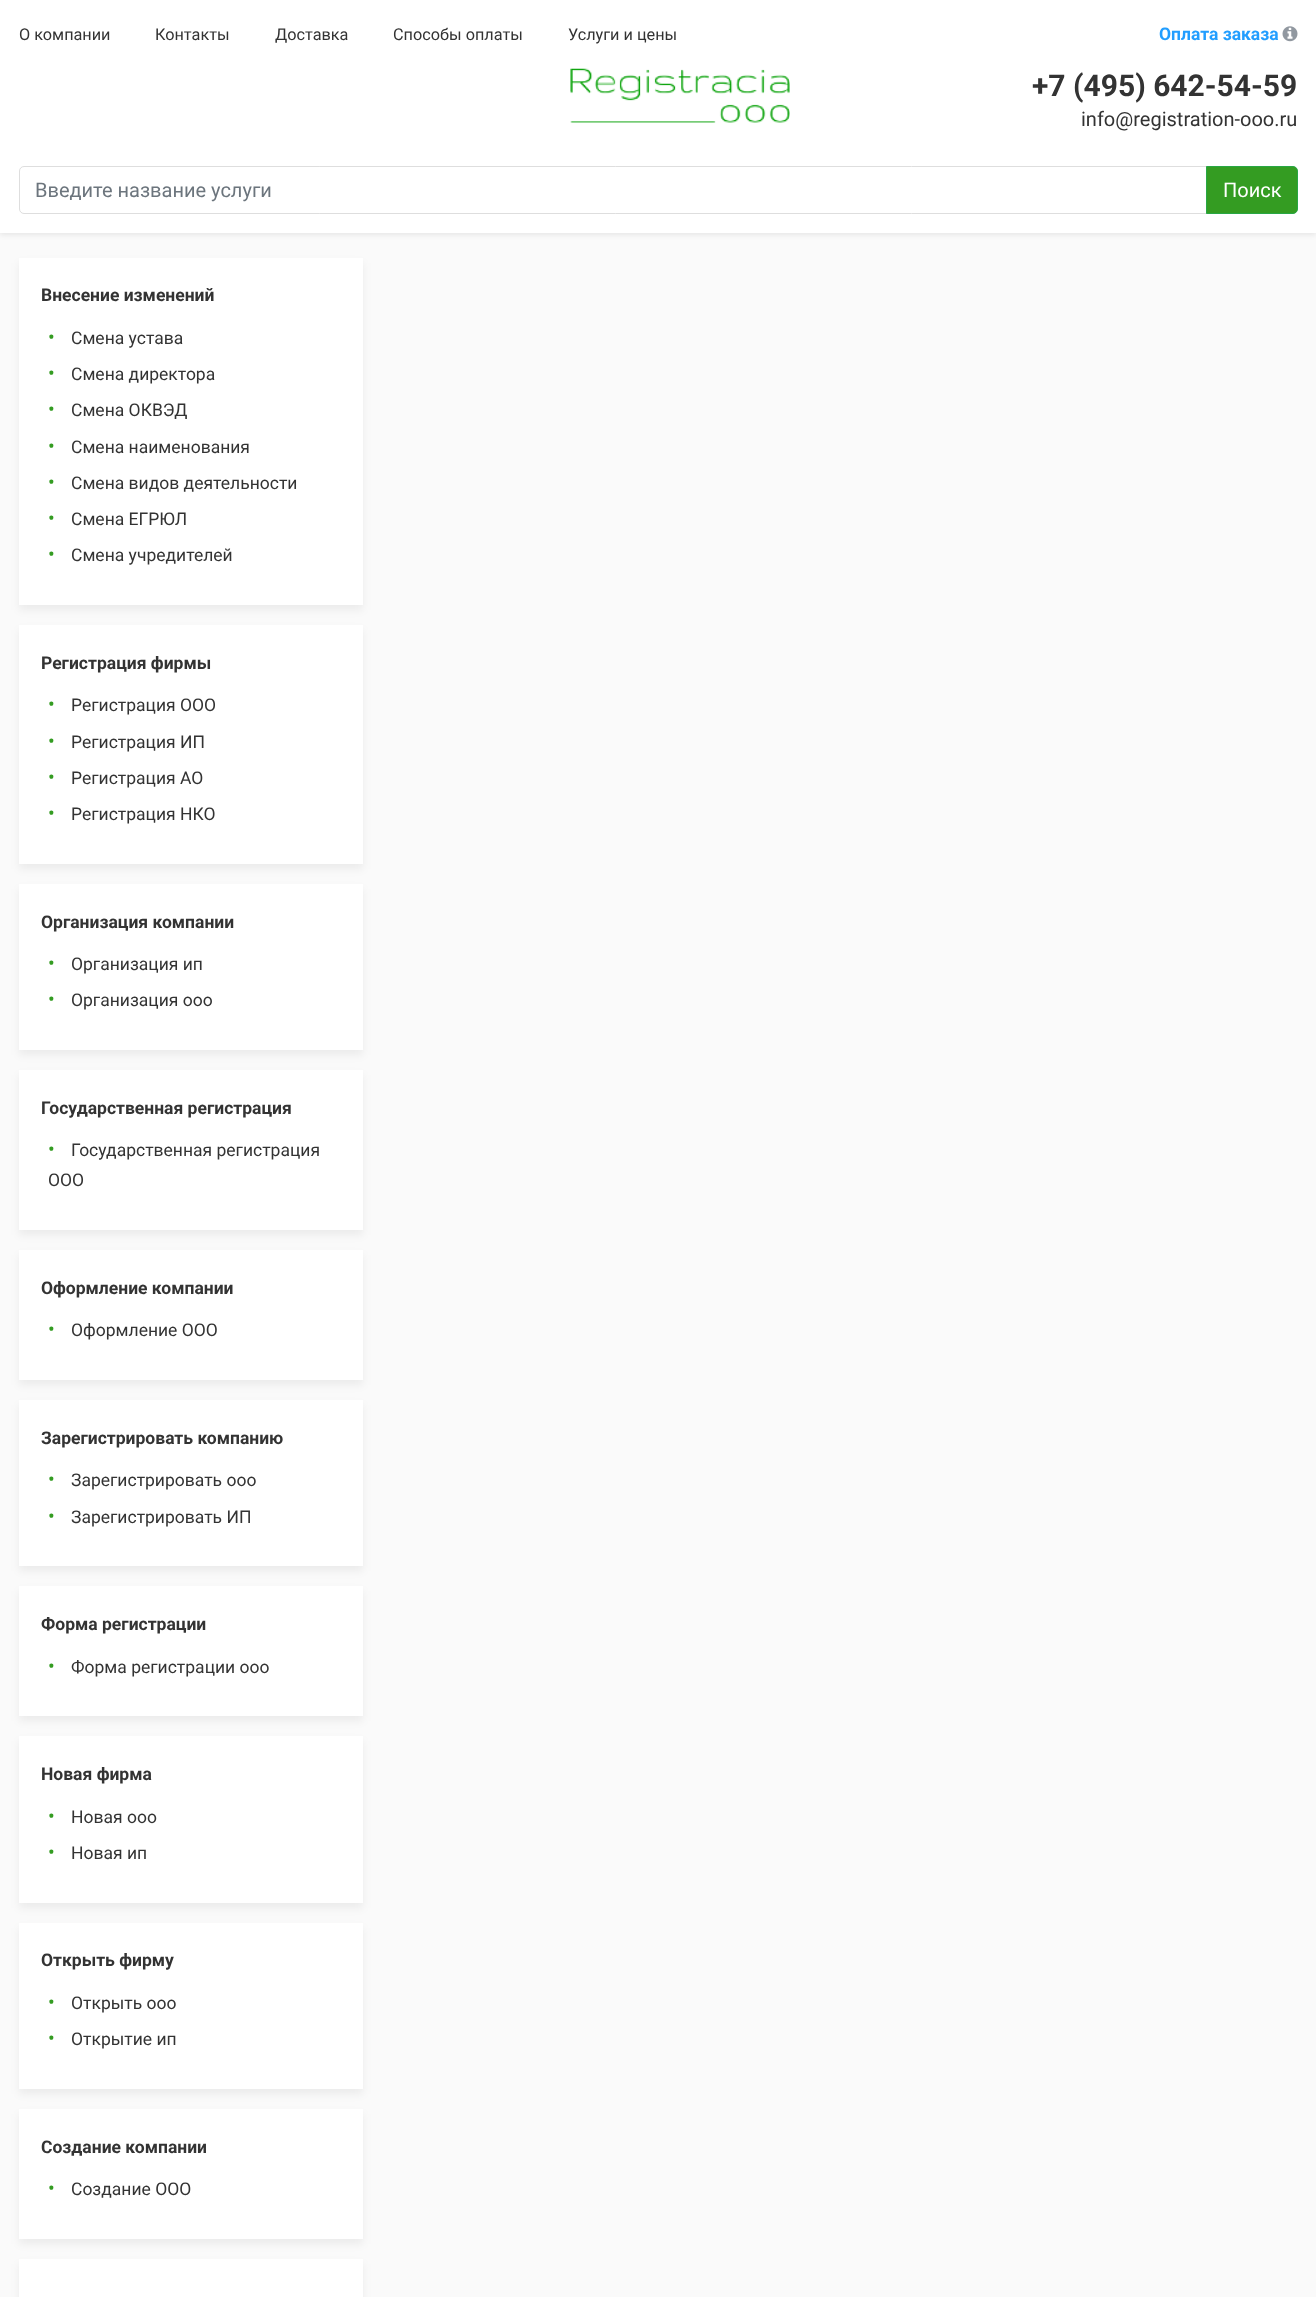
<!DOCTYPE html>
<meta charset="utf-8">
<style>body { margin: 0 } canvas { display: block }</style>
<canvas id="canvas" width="1316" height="2297"></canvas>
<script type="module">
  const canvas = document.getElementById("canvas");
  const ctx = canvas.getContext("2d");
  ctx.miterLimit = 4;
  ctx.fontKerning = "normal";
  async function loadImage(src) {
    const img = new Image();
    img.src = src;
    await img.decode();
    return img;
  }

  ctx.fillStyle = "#fafafa";
  ctx.fillRect(0, 0, 1316, 2297);
  ctx.fillStyle = "rgba(0, 0, 0, 0.08)";
  ctx.filter = "blur(2.5px)";
  ctx.beginPath();
  ctx.rect(0, 3, 1316, 232);
  ctx.fill();
  ctx.filter = "none";
  ctx.fillStyle = "#ffffff";
  ctx.fillRect(0, 0, 1316, 233);
  ctx.font = "16.25px Roboto";
  ctx.fillStyle = "#333333";
  ctx.fillText("О компании", 19, 40);
  ctx.fillText("Контакты", 155, 40);
  ctx.fillText("Доставка", 275, 40);
  ctx.fillText("Способы оплаты", 393, 40);
  ctx.fillText("Услуги и цены", 568, 40);
  ctx.font = "bold 17.5px Roboto";
  ctx.fillStyle = "#229eff";
  ctx.fillText("Оплата заказа", 1159, 40);
  ctx.drawImage(await loadImage("img1.png"), 1282, 26, 16, 16);
  ctx.drawImage(await loadImage("img2.png"), 570, 68, 220, 55);
  ctx.font = "bold 30px Roboto";
  ctx.fillStyle = "#333333";
  ctx.fillText("+7 (495) 642-54-59", 1032, 96);
  ctx.font = "20px Roboto";
  ctx.fillText("info@registration-ooo.ru", 1081, 126);
  ctx.beginPath();
  ctx.roundRect(19.5, 166.5, 1188, 47, [4.5, 0, 0, 4.5]);
  ctx.strokeStyle = "#dedede";
  ctx.stroke();
  ctx.fillStyle = "#6c757d";
  ctx.fillText("Введите название услуги", 35, 197);
  ctx.fillStyle = "#349c22";
  ctx.beginPath();
  ctx.roundRect(1206.5, 166.5, 91, 47, [0, 4.5, 4.5, 0]);
  ctx.fill();
  ctx.strokeStyle = "#28a745";
  ctx.stroke();
  ctx.fillStyle = "#ffffff";
  ctx.fillText("Поиск", 1223, 197);
  ctx.fillStyle = "rgba(0, 0, 0, 0.06)";
  ctx.filter = "blur(4px)";
  ctx.beginPath();
  ctx.rect(19, 263, 344, 347);
  ctx.fill();
  ctx.filter = "none";
  ctx.fillStyle = "#ffffff";
  ctx.fillRect(19, 258, 344, 347);
  ctx.font = "bold 17.5px Roboto";
  ctx.fillStyle = "#333333";
  ctx.fillText("Внесение изменений", 41, 301);
  ctx.font = "20px Roboto";
  ctx.fillStyle = "#349c22";
  ctx.fillText("•", 48, 344);
  ctx.font = "17.5px Roboto";
  ctx.fillStyle = "#333333";
  ctx.fillText("Смена устава", 71, 344);
  ctx.font = "20px Roboto";
  ctx.fillStyle = "#349c22";
  ctx.fillText("•", 48, 380);
  ctx.font = "17.5px Roboto";
  ctx.fillStyle = "#333333";
  ctx.fillText("Смена директора", 71, 380);
  ctx.font = "20px Roboto";
  ctx.fillStyle = "#349c22";
  ctx.fillText("•", 48, 416);
  ctx.font = "17.5px Roboto";
  ctx.fillStyle = "#333333";
  ctx.fillText("Смена ОКВЭД", 71, 416);
  ctx.font = "20px Roboto";
  ctx.fillStyle = "#349c22";
  ctx.fillText("•", 48, 453);
  ctx.font = "17.5px Roboto";
  ctx.fillStyle = "#333333";
  ctx.fillText("Смена наименования", 71, 453);
  ctx.font = "20px Roboto";
  ctx.fillStyle = "#349c22";
  ctx.fillText("•", 48, 489);
  ctx.font = "17.5px Roboto";
  ctx.fillStyle = "#333333";
  ctx.fillText("Смена видов деятельности", 71, 489);
  ctx.font = "20px Roboto";
  ctx.fillStyle = "#349c22";
  ctx.fillText("•", 48, 525);
  ctx.font = "17.5px Roboto";
  ctx.fillStyle = "#333333";
  ctx.fillText("Смена ЕГРЮЛ", 71, 525);
  ctx.font = "20px Roboto";
  ctx.fillStyle = "#349c22";
  ctx.fillText("•", 48, 561);
  ctx.font = "17.5px Roboto";
  ctx.fillStyle = "#333333";
  ctx.fillText("Смена учредителей", 71, 561);
  ctx.fillStyle = "rgba(0, 0, 0, 0.06)";
  ctx.filter = "blur(4px)";
  ctx.beginPath();
  ctx.rect(19, 630, 344, 239);
  ctx.fill();
  ctx.filter = "none";
  ctx.fillStyle = "#ffffff";
  ctx.fillRect(19, 625, 344, 239);
  ctx.font = "bold 17.5px Roboto";
  ctx.fillStyle = "#333333";
  ctx.fillText("Регистрация фирмы", 41, 669);
  ctx.font = "20px Roboto";
  ctx.fillStyle = "#349c22";
  ctx.fillText("•", 48, 711);
  ctx.font = "17.5px Roboto";
  ctx.fillStyle = "#333333";
  ctx.fillText("Регистрация ООО", 71, 711);
  ctx.font = "20px Roboto";
  ctx.fillStyle = "#349c22";
  ctx.fillText("•", 48, 748);
  ctx.font = "17.5px Roboto";
  ctx.fillStyle = "#333333";
  ctx.fillText("Регистрация ИП", 71, 748);
  ctx.font = "20px Roboto";
  ctx.fillStyle = "#349c22";
  ctx.fillText("•", 48, 784);
  ctx.font = "17.5px Roboto";
  ctx.fillStyle = "#333333";
  ctx.fillText("Регистрация АО", 71, 784);
  ctx.font = "20px Roboto";
  ctx.fillStyle = "#349c22";
  ctx.fillText("•", 48, 820);
  ctx.font = "17.5px Roboto";
  ctx.fillStyle = "#333333";
  ctx.fillText("Регистрация НКО", 71, 820);
  ctx.fillStyle = "rgba(0, 0, 0, 0.06)";
  ctx.filter = "blur(4px)";
  ctx.beginPath();
  ctx.rect(19, 889, 344, 166);
  ctx.fill();
  ctx.filter = "none";
  ctx.fillStyle = "#ffffff";
  ctx.fillRect(19, 884, 344, 166);
  ctx.font = "bold 17.5px Roboto";
  ctx.fillStyle = "#333333";
  ctx.fillText("Организация компании", 41, 928);
  ctx.font = "20px Roboto";
  ctx.fillStyle = "#349c22";
  ctx.fillText("•", 48, 970);
  ctx.font = "17.5px Roboto";
  ctx.fillStyle = "#333333";
  ctx.fillText("Организация ип", 71, 970);
  ctx.font = "20px Roboto";
  ctx.fillStyle = "#349c22";
  ctx.fillText("•", 48, 1006);
  ctx.font = "17.5px Roboto";
  ctx.fillStyle = "#333333";
  ctx.fillText("Организация ооо", 71, 1006);
  ctx.fillStyle = "rgba(0, 0, 0, 0.06)";
  ctx.filter = "blur(4px)";
  ctx.beginPath();
  ctx.rect(19, 1075, 344, 160);
  ctx.fill();
  ctx.filter = "none";
  ctx.fillStyle = "#ffffff";
  ctx.fillRect(19, 1070, 344, 160);
  ctx.font = "bold 17.5px Roboto";
  ctx.fillStyle = "#333333";
  ctx.fillText("Государственная регистрация", 41, 1114);
  ctx.font = "20px Roboto";
  ctx.fillStyle = "#349c22";
  ctx.fillText("•", 48, 1156);
  ctx.font = "17.5px Roboto";
  ctx.fillStyle = "#333333";
  ctx.fillText("Государственная регистрация", 71, 1156);
  ctx.fillText("ООО", 48, 1186);
  ctx.fillStyle = "rgba(0, 0, 0, 0.06)";
  ctx.filter = "blur(4px)";
  ctx.beginPath();
  ctx.rect(19, 1255, 344, 130);
  ctx.fill();
  ctx.filter = "none";
  ctx.fillStyle = "#ffffff";
  ctx.fillRect(19, 1250, 344, 130);
  ctx.font = "bold 17.5px Roboto";
  ctx.fillStyle = "#333333";
  ctx.fillText("Оформление компании", 41, 1294);
  ctx.font = "20px Roboto";
  ctx.fillStyle = "#349c22";
  ctx.fillText("•", 48, 1336);
  ctx.font = "17.5px Roboto";
  ctx.fillStyle = "#333333";
  ctx.fillText("Оформление ООО", 71, 1336);
  ctx.fillStyle = "rgba(0, 0, 0, 0.06)";
  ctx.filter = "blur(4px)";
  ctx.beginPath();
  ctx.rect(19, 1405, 344, 166);
  ctx.fill();
  ctx.filter = "none";
  ctx.fillStyle = "#ffffff";
  ctx.fillRect(19, 1400, 344, 166);
  ctx.font = "bold 17.5px Roboto";
  ctx.fillStyle = "#333333";
  ctx.fillText("Зарегистрировать компанию", 41, 1444);
  ctx.font = "20px Roboto";
  ctx.fillStyle = "#349c22";
  ctx.fillText("•", 48, 1486);
  ctx.font = "17.5px Roboto";
  ctx.fillStyle = "#333333";
  ctx.fillText("Зарегистрировать ооо", 71, 1486);
  ctx.font = "20px Roboto";
  ctx.fillStyle = "#349c22";
  ctx.fillText("•", 48, 1523);
  ctx.font = "17.5px Roboto";
  ctx.fillStyle = "#333333";
  ctx.fillText("Зарегистрировать ИП", 71, 1523);
  ctx.fillStyle = "rgba(0, 0, 0, 0.06)";
  ctx.filter = "blur(4px)";
  ctx.beginPath();
  ctx.rect(19, 1591, 344, 130);
  ctx.fill();
  ctx.filter = "none";
  ctx.fillStyle = "#ffffff";
  ctx.fillRect(19, 1586, 344, 130);
  ctx.font = "bold 17.5px Roboto";
  ctx.fillStyle = "#333333";
  ctx.fillText("Форма регистрации", 41, 1630);
  ctx.font = "20px Roboto";
  ctx.fillStyle = "#349c22";
  ctx.fillText("•", 48, 1673);
  ctx.font = "17.5px Roboto";
  ctx.fillStyle = "#333333";
  ctx.fillText("Форма регистрации ооо", 71, 1673);
  ctx.fillStyle = "rgba(0, 0, 0, 0.06)";
  ctx.filter = "blur(4px)";
  ctx.beginPath();
  ctx.rect(19, 1741, 344, 167);
  ctx.fill();
  ctx.filter = "none";
  ctx.fillStyle = "#ffffff";
  ctx.fillRect(19, 1736, 344, 167);
  ctx.font = "bold 17.5px Roboto";
  ctx.fillStyle = "#333333";
  ctx.fillText("Новая фирма", 41, 1780);
  ctx.font = "20px Roboto";
  ctx.fillStyle = "#349c22";
  ctx.fillText("•", 48, 1823);
  ctx.font = "17.5px Roboto";
  ctx.fillStyle = "#333333";
  ctx.fillText("Новая ооо", 71, 1823);
  ctx.font = "20px Roboto";
  ctx.fillStyle = "#349c22";
  ctx.fillText("•", 48, 1859);
  ctx.font = "17.5px Roboto";
  ctx.fillStyle = "#333333";
  ctx.fillText("Новая ип", 71, 1859);
  ctx.fillStyle = "rgba(0, 0, 0, 0.06)";
  ctx.filter = "blur(4px)";
  ctx.beginPath();
  ctx.rect(19, 1928, 344, 166);
  ctx.fill();
  ctx.filter = "none";
  ctx.fillStyle = "#ffffff";
  ctx.fillRect(19, 1923, 344, 166);
  ctx.font = "bold 17.5px Roboto";
  ctx.fillStyle = "#333333";
  ctx.fillText("Открыть фирму", 41, 1966);
  ctx.font = "20px Roboto";
  ctx.fillStyle = "#349c22";
  ctx.fillText("•", 48, 2009);
  ctx.font = "17.5px Roboto";
  ctx.fillStyle = "#333333";
  ctx.fillText("Открыть ооо", 71, 2009);
  ctx.font = "20px Roboto";
  ctx.fillStyle = "#349c22";
  ctx.fillText("•", 48, 2045);
  ctx.font = "17.5px Roboto";
  ctx.fillStyle = "#333333";
  ctx.fillText("Открытие ип", 71, 2045);
  ctx.fillStyle = "rgba(0, 0, 0, 0.06)";
  ctx.filter = "blur(4px)";
  ctx.beginPath();
  ctx.rect(19, 2114, 344, 130);
  ctx.fill();
  ctx.filter = "none";
  ctx.fillStyle = "#ffffff";
  ctx.fillRect(19, 2109, 344, 130);
  ctx.font = "bold 17.5px Roboto";
  ctx.fillStyle = "#333333";
  ctx.fillText("Создание компании", 41, 2153);
  ctx.font = "20px Roboto";
  ctx.fillStyle = "#349c22";
  ctx.fillText("•", 48, 2195);
  ctx.font = "17.5px Roboto";
  ctx.fillStyle = "#333333";
  ctx.fillText("Создание ООО", 71, 2195);
  ctx.fillStyle = "rgba(0, 0, 0, 0.06)";
  ctx.filter = "blur(4px)";
  ctx.beginPath();
  ctx.rect(19, 2264, 344, 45);
  ctx.fill();
  ctx.filter = "none";
  ctx.fillStyle = "#ffffff";
  ctx.fillRect(19, 2259, 344, 38);
</script>
